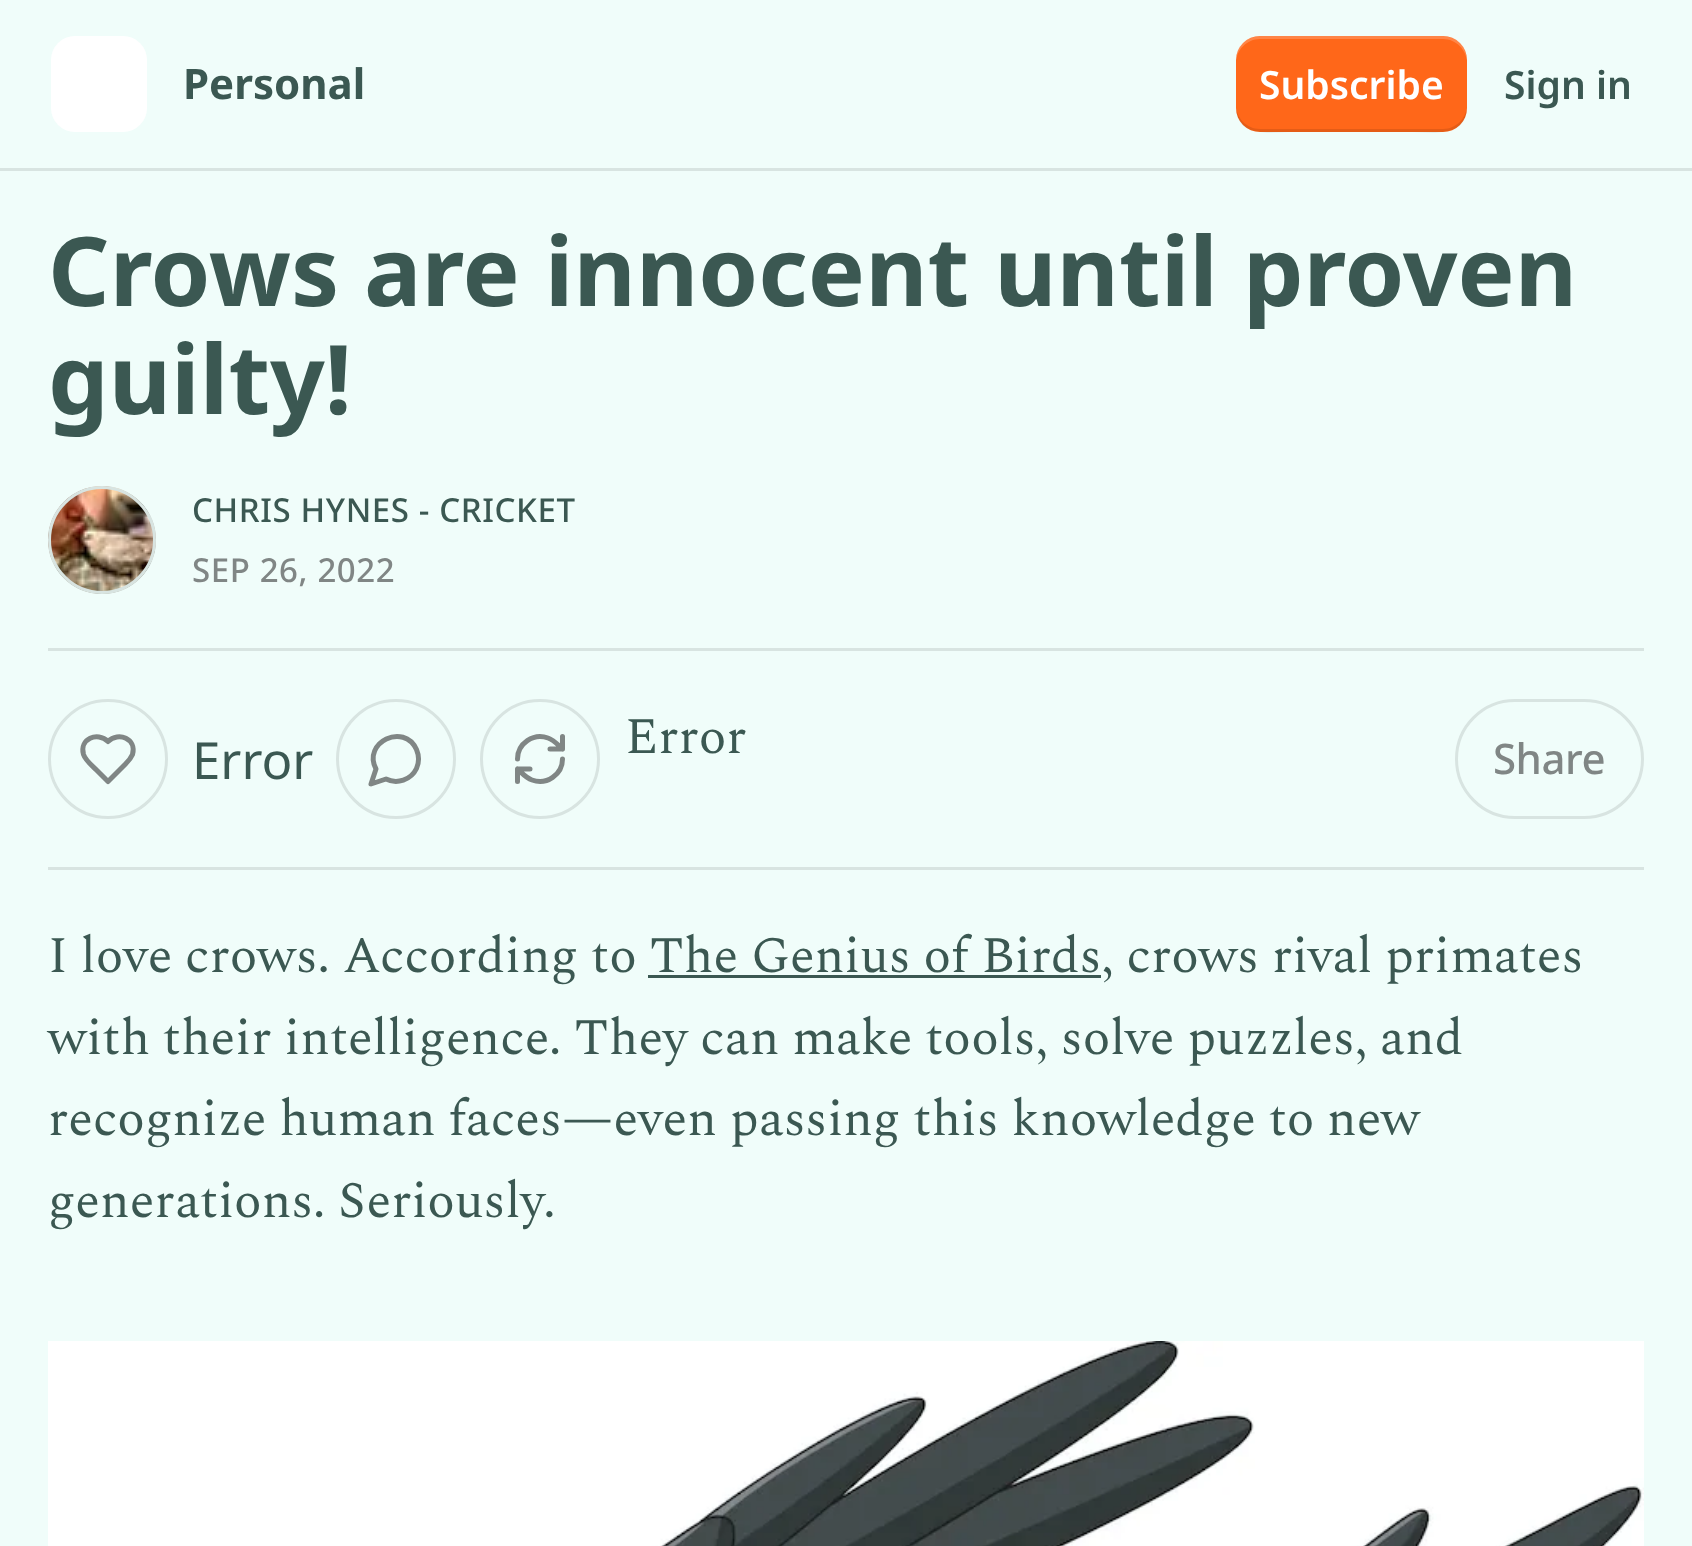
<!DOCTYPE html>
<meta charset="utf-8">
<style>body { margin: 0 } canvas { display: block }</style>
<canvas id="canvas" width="1692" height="1546"></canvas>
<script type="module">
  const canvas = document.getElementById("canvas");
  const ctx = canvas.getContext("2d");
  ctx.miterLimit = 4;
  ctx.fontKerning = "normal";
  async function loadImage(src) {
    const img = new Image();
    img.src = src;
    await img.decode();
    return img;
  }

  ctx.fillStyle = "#f0fdfa";
  ctx.fillRect(0, 0, 1692, 1546);
  ctx.fillStyle = "#d8e4e1";
  ctx.fillRect(0, 168, 1692, 3);
  ctx.fillStyle = "#ffffff";
  ctx.beginPath();
  ctx.roundRect(51, 36, 96, 96, 24);
  ctx.fill();
  ctx.font = "bold 42px Noto Sans";
  ctx.fillStyle = "#3b5852";
  ctx.fillText("Personal", 183, 99);
  ctx.fillStyle = "#ff6719";
  ctx.beginPath();
  ctx.roundRect(1236, 36, 231, 96, 24);
  ctx.fill();
  ctx.fillStyle = "rgba(0, 0, 0, 0.1)";
  ctx.beginPath();
  ctx.moveTo(1236, 105);
  ctx.bezierCurveTo(1236, 138, 1266, 132, 1290, 132);
  ctx.lineTo(1412, 132);
  ctx.bezierCurveTo(1437, 132, 1467, 138, 1467, 105);
  ctx.bezierCurveTo(1467, 118, 1456, 129, 1443, 129);
  ctx.lineTo(1260, 129);
  ctx.bezierCurveTo(1247, 129, 1236, 118, 1236, 105);
  ctx.closePath();
  ctx.fill();
  ctx.fillStyle = "rgba(255, 255, 255, 0.2)";
  ctx.beginPath();
  ctx.moveTo(1260, 39);
  ctx.lineTo(1443, 39);
  ctx.bezierCurveTo(1456, 39, 1467, 50, 1467, 63);
  ctx.bezierCurveTo(1467, 30, 1437, 36, 1412, 36);
  ctx.lineTo(1290, 36);
  ctx.bezierCurveTo(1266, 36, 1236, 30, 1236, 63);
  ctx.bezierCurveTo(1236, 50, 1247, 39, 1260, 39);
  ctx.closePath();
  ctx.fill();
  ctx.font = "600 39px Noto Sans";
  ctx.fillStyle = "#ffffff";
  ctx.fillText("Subscribe", 1259, 99);
  ctx.fillStyle = "#3b5852";
  ctx.fillText("Sign in", 1504, 99);
  ctx.font = "bold 96px Noto Sans";
  ctx.fillText("Crows are innocent until proven", 48, 306);
  ctx.fillText("guilty!", 48, 414);
  ctx.beginPath();
  ctx.arc(102, 540, 52.5, 0, Math.PI * 2);
  ctx.strokeStyle = "#d8e4e1";
  ctx.lineWidth = 3;
  ctx.stroke();
  ctx.drawImage(await loadImage("img1.png"), 48, 486, 108, 108);
  ctx.beginPath();
  ctx.arc(102, 540, 52.5, 0, Math.PI * 2);
  ctx.stroke();
  ctx.letterSpacing = "0.6px";
  ctx.font = "500 33px Noto Sans";
  ctx.fillText("CHRIS HYNES - CRICKET", 192, 522);
  ctx.fillStyle = "#808685";
  ctx.fillText("SEP 26, 2022", 192, 582);
  ctx.fillStyle = "#d8e4e1";
  ctx.fillRect(48, 648, 1596, 3);
  ctx.fillRect(48, 867, 1596, 3);
  ctx.beginPath();
  ctx.arc(396, 759, 58.5, 0, Math.PI * 2);
  ctx.stroke();
  ctx.beginPath();
  ctx.moveTo(386, 779);
  ctx.bezierCurveTo(397, 784.5, 411, 780, 416.5, 768.5);
  ctx.bezierCurveTo(419, 763, 419, 755.5, 416.5, 749.5);
  ctx.bezierCurveTo(404, 722, 362, 742.5, 376, 769);
  ctx.lineTo(371, 784);
  ctx.closePath();
  ctx.strokeStyle = "#808685";
  ctx.lineWidth = 5;
  ctx.lineCap = "round";
  ctx.lineJoin = "round";
  ctx.stroke();
  ctx.beginPath();
  ctx.arc(540, 759, 58.5, 0, Math.PI * 2);
  ctx.strokeStyle = "#d8e4e1";
  ctx.lineWidth = 3;
  ctx.stroke();
  ctx.beginPath();
  ctx.moveTo(562.5, 736.5);
  ctx.lineTo(562.5, 749);
  ctx.moveTo(562.5, 749);
  ctx.lineTo(550, 749);
  ctx.moveTo(562.5, 749);
  ctx.bezierCurveTo(558, 745, 554, 740, 548, 738);
  ctx.bezierCurveTo(533.5, 732.5, 517.5, 743.5, 517.5, 759);
  ctx.moveTo(517.5, 781.5);
  ctx.lineTo(517.5, 769);
  ctx.moveTo(517.5, 769);
  ctx.lineTo(530, 769);
  ctx.moveTo(517.5, 769);
  ctx.bezierCurveTo(522, 773, 526, 778, 532, 780);
  ctx.bezierCurveTo(546.5, 785.5, 562.5, 774.5, 562.5, 759);
  ctx.strokeStyle = "#808685";
  ctx.lineWidth = 5;
  ctx.stroke();
  ctx.letterSpacing = "0px";
  ctx.font = "51px Spectral";
  ctx.fillStyle = "#3b5852";
  ctx.fillText("Error", 625, 753);
  ctx.beginPath();
  ctx.arc(108, 759, 58.5, 0, Math.PI * 2);
  ctx.strokeStyle = "#d8e4e1";
  ctx.lineWidth = 3;
  ctx.stroke();
  ctx.beginPath();
  ctx.moveTo(125.5, 764);
  ctx.bezierCurveTo(128.5, 761, 131, 758, 132.5, 754.5);
  ctx.bezierCurveTo(137, 739, 118.5, 731, 108, 741.5);
  ctx.bezierCurveTo(97.5, 731, 79, 739, 83.5, 754.5);
  ctx.bezierCurveTo(85.5, 760.5, 92, 765.5, 96.5, 770);
  ctx.lineTo(108, 781.5);
  ctx.closePath();
  ctx.strokeStyle = "#808685";
  ctx.lineWidth = 5;
  ctx.stroke();
  ctx.font = "51px Noto Sans";
  ctx.fillText("Error", 192, 779);
  ctx.beginPath();
  ctx.roundRect(1456.5, 700.5, 186, 117, 58.5);
  ctx.strokeStyle = "#d8e4e1";
  ctx.lineWidth = 3;
  ctx.lineJoin = "miter";
  ctx.stroke();
  ctx.letterSpacing = "-0.5px";
  ctx.font = "500 42px Noto Sans";
  ctx.fillStyle = "#808685";
  ctx.fillText("Share", 1493, 774);
  ctx.letterSpacing = "0px";
  ctx.font = "51px Spectral";
  ctx.fillStyle = "#3b5852";
  ctx.fillText("I love crows. According to The Genius of Birds", 48, 972);
  ctx.fillText(", crows rival primates", 1101, 972);
  ctx.fillRect(648, 975, 453, 3);
  ctx.fillText("with their intelligence. They can make tools, solve puzzles, and", 48, 1054);
  ctx.fillText("recognize human faces—even passing this knowledge to new", 48, 1135);
  ctx.fillText("generations. Seriously.", 48, 1217);
  ctx.drawImage(await loadImage("img2.png"), 48, 1341, 1596, 205);
</script>
